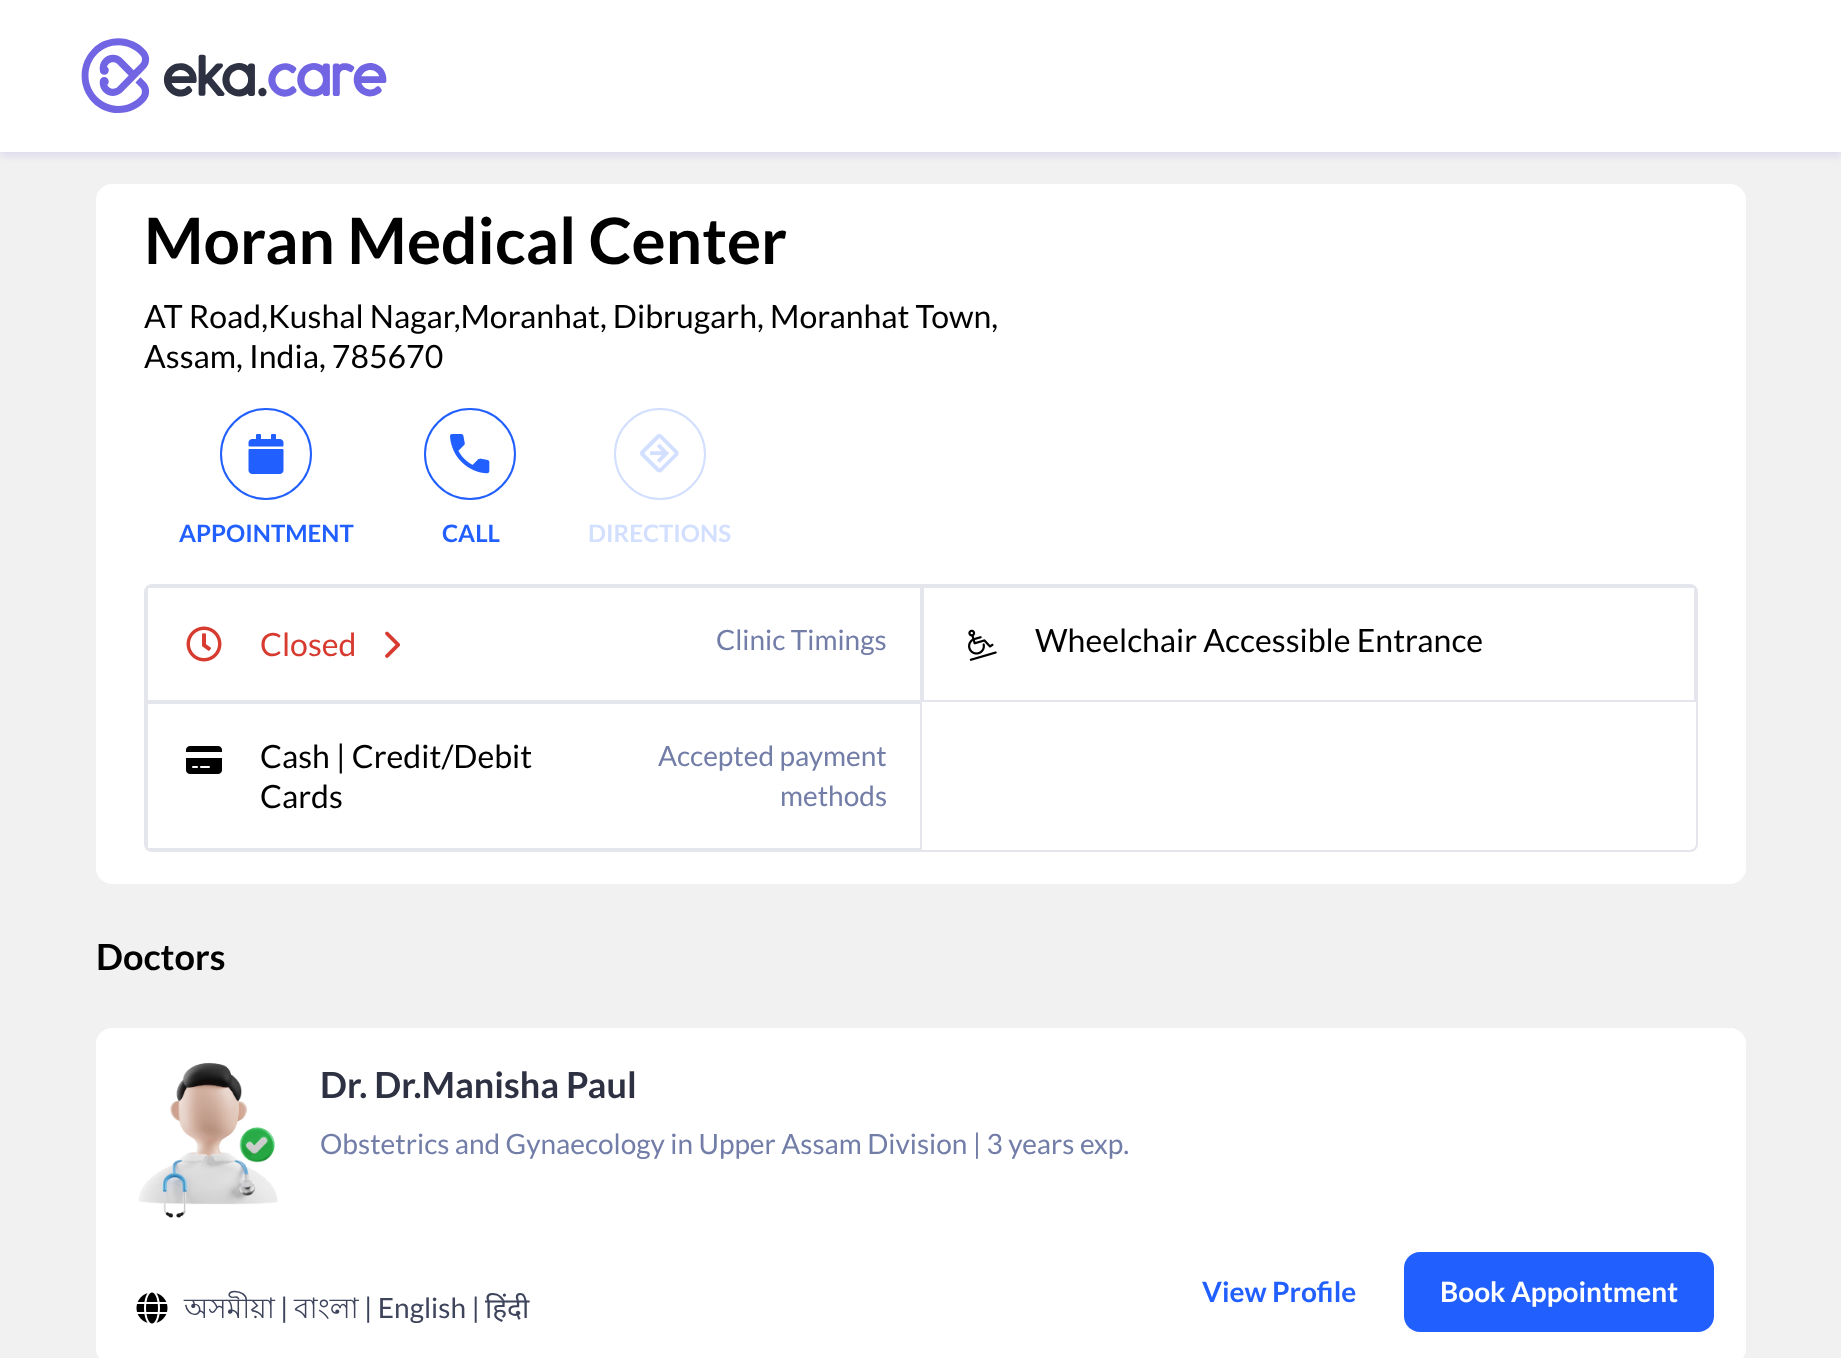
<!DOCTYPE html>
<meta charset="utf-8">
<style>body { margin: 0 } canvas { display: block }</style>
<canvas id="canvas" width="1841" height="1358"></canvas>
<script type="module">
  const canvas = document.getElementById("canvas");
  const ctx = canvas.getContext("2d");
  ctx.miterLimit = 4;
  ctx.fontKerning = "normal";
  async function loadImage(src) {
    const img = new Image();
    img.src = src;
    await img.decode();
    return img;
  }

  ctx.fillStyle = "#f1f1f1";
  ctx.fillRect(0, 0, 1841, 1358);
  ctx.fillStyle = "rgba(114, 101, 227, 0.16)";
  ctx.filter = "blur(4px)";
  ctx.beginPath();
  ctx.rect(0, 4, 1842, 152);
  ctx.fill();
  ctx.filter = "none";
  ctx.fillStyle = "#ffffff";
  ctx.fillRect(0, 0, 1841, 152);
  ctx.drawImage(await loadImage("img1.png"), 81, 38, 306, 75);
  ctx.beginPath();
  ctx.roundRect(96, 184, 1650, 700, 16);
  ctx.fill();
  ctx.font = "bold 64px Lato";
  ctx.fillStyle = "#000000";
  ctx.fillText("Moran Medical Center", 144, 264);
  ctx.font = "32px Lato";
  ctx.fillText("AT Road,Kushal Nagar,Moranhat, Dibrugarh, Moranhat Town,", 144, 328);
  ctx.fillText("Assam, India, 785670", 144, 368);
  ctx.beginPath();
  ctx.arc(266, 454, 45, 0, Math.PI * 2);
  ctx.strokeStyle = "#215fff";
  ctx.lineWidth = 2;
  ctx.stroke();
  ctx.drawImage(await loadImage("img2.png"), 248, 434, 36, 40);
  ctx.font = "bold 24px Lato";
  ctx.fillStyle = "#215fff";
  ctx.fillText("APPOINTMENT", 179, 542);
  ctx.beginPath();
  ctx.arc(470, 454, 45, 0, Math.PI * 2);
  ctx.stroke();
  ctx.drawImage(await loadImage("img3.png"), 450, 434, 40, 40);
  ctx.fillText("CALL", 442, 542);
  ctx.beginPath();
  ctx.arc(660, 454, 45, 0, Math.PI * 2);
  ctx.strokeStyle = "#d3dfff";
  ctx.stroke();
  ctx.drawImage(await loadImage("img4.png"), 640, 434, 39, 39);
  ctx.fillStyle = "#d3dfff";
  ctx.fillText("DIRECTIONS", 588, 542);
  ctx.beginPath();
  ctx.roundRect(145, 585, 1552, 266, 7);
  ctx.strokeStyle = "#e4e5ed";
  ctx.stroke();
  ctx.strokeRect(147, 587, 774, 114);
  ctx.drawImage(await loadImage("img5.png"), 186, 626, 36, 36);
  ctx.font = "32px Lato";
  ctx.fillStyle = "#d73a2f";
  ctx.fillText("Closed", 260, 656);
  ctx.drawImage(await loadImage("img6.png"), 385, 631, 16, 27);
  ctx.font = "28px Lato";
  ctx.fillStyle = "#727da8";
  ctx.fillText("Clinic Timings", 716, 650);
  ctx.strokeRect(923, 587, 772, 114);
  ctx.drawImage(await loadImage("img7.png"), 968, 629, 29, 32);
  ctx.font = "32px Lato";
  ctx.fillStyle = "#000000";
  ctx.fillText("Wheelchair Accessible Entrance", 1035, 652);
  ctx.strokeRect(147, 703, 774, 146);
  ctx.drawImage(await loadImage("img8.png"), 186, 746, 36, 28);
  ctx.fillText("Cash | Credit/Debit", 260, 768);
  ctx.fillText("Cards", 260, 808);
  ctx.font = "28px Lato";
  ctx.fillStyle = "#727da8";
  ctx.fillText("Accepted payment", 658, 766);
  ctx.fillText("methods", 780, 806);
  ctx.font = "bold 36px Lato";
  ctx.fillStyle = "#000000";
  ctx.fillText("Doctors", 96, 970);
  ctx.fillStyle = "#ffffff";
  ctx.beginPath();
  ctx.roundRect(96, 1028, 1650, 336, 16);
  ctx.fill();
  ctx.save();
  ctx.beginPath();
  ctx.roundRect(96, 1028, 1650, 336, 16);
  ctx.clip();
  ctx.beginPath();
  ctx.roundRect(96, 1028, 1650, 330, [16, 16, 0, 0]);
  ctx.fill();
  ctx.restore();
  ctx.drawImage(await loadImage("img9.png"), 138, 1062, 140, 156);
  ctx.fillStyle = "#2d3142";
  ctx.fillText("Dr. Dr.Manisha Paul", 320, 1098);
  ctx.font = "28px Lato";
  ctx.fillStyle = "#727da8";
  ctx.fillText("Obstetrics and Gynaecology in Upper Assam Division | 3 years exp.", 320, 1154);
  ctx.drawImage(await loadImage("img10.png"), 136, 1292, 32, 32);
  ctx.font = "28px Lohit Bengali";
  ctx.fillStyle = "#3e445c";
  ctx.fillText("অসমীয়া", 184, 1318);
  ctx.font = "28px Lato";
  ctx.fillText("|", 280, 1318);
  ctx.font = "28px Lohit Bengali";
  ctx.fillText("বাংলা", 294, 1318);
  ctx.font = "28px Lato";
  ctx.fillText("| English |", 364, 1318);
  ctx.font = "28px Noto Sans";
  ctx.fillText("हिंदी", 485, 1318);
  ctx.font = "bold 28px Lato";
  ctx.fillStyle = "#215fff";
  ctx.fillText("View Profile", 1202, 1302);
  ctx.beginPath();
  ctx.roundRect(1404, 1252, 310, 80, 16);
  ctx.fill();
  ctx.fillStyle = "#ffffff";
  ctx.fillText("Book Appointment", 1440, 1302);
</script>
